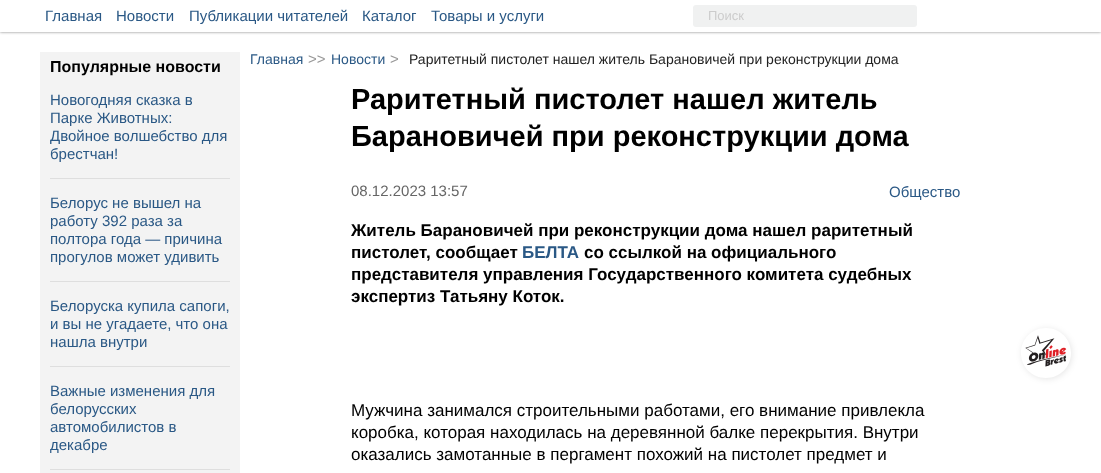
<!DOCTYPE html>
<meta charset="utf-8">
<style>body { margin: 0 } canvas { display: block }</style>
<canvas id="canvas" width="1101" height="473"></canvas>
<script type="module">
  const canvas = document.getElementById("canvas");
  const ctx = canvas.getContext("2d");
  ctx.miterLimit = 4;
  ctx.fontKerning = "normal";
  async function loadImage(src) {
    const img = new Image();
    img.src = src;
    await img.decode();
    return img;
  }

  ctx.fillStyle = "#ffffff";
  ctx.fillRect(0, 0, 1101, 473);
  ctx.save();
  ctx.beginPath();
  ctx.rect(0, 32, 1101, 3);
  ctx.clip();
  ctx.fillStyle = "rgba(0, 0, 0, 0.5)";
  ctx.filter = "blur(1.5px)";
  ctx.beginPath();
  ctx.rect(0, 0, 1101, 32);
  ctx.fill();
  ctx.filter = "none";
  ctx.restore();
  ctx.font = "15px Liberation Sans";
  ctx.fillStyle = "#2a5885";
  ctx.fillText("Главная", 45, 21);
  ctx.fillText("Новости", 116, 21);
  ctx.fillText("Публикации читателей", 189, 21);
  ctx.fillText("Каталог", 362, 21);
  ctx.fillText("Товары и услуги", 431, 21);
  ctx.fillStyle = "#f0f1f1";
  ctx.beginPath();
  ctx.roundRect(693, 5, 224, 22, 3);
  ctx.fill();
  ctx.font = "13px Liberation Sans";
  ctx.fillStyle = "#cccccc";
  ctx.fillText("Поиск", 708, 20);
  ctx.fillStyle = "#f3f3f3";
  ctx.fillRect(40, 52, 200, 421);
  ctx.font = "bold 16px Liberation Sans";
  ctx.fillStyle = "#000000";
  ctx.fillText("Популярные новости", 50, 72);
  ctx.fillStyle = "#dedede";
  ctx.fillRect(50, 178, 180, 1);
  ctx.font = "15px Liberation Sans";
  ctx.fillStyle = "#2a5885";
  ctx.fillText("Новогодняя сказка в", 50, 105);
  ctx.fillText("Парке Животных:", 50, 123);
  ctx.fillText("Двойное волшебство для", 50, 141);
  ctx.fillText("брестчан!", 50, 159);
  ctx.fillStyle = "#dedede";
  ctx.fillRect(50, 281, 180, 1);
  ctx.fillStyle = "#2a5885";
  ctx.fillText("Белорус не вышел на", 50, 208);
  ctx.fillText("работу 392 раза за", 50, 226);
  ctx.fillText("полтора года — причина", 50, 244);
  ctx.fillText("прогулов может удивить", 50, 262);
  ctx.fillStyle = "#dedede";
  ctx.fillRect(50, 366, 180, 1);
  ctx.fillStyle = "#2a5885";
  ctx.fillText("Белоруска купила сапоги,", 50, 311);
  ctx.fillText("и вы не угадаете, что она", 50, 329);
  ctx.fillText("нашла внутри", 50, 347);
  ctx.fillStyle = "#dedede";
  ctx.fillRect(50, 469, 180, 1);
  ctx.fillStyle = "#2a5885";
  ctx.fillText("Важные изменения для", 50, 396);
  ctx.fillText("белорусских", 50, 414);
  ctx.fillText("автомобилистов в", 50, 432);
  ctx.fillText("декабре", 50, 450);
  ctx.font = "14px Liberation Sans";
  ctx.fillText("Главная", 250, 64);
  ctx.font = "15px Liberation Sans";
  ctx.fillStyle = "#999999";
  ctx.fillText(">>", 308, 64);
  ctx.font = "14px Liberation Sans";
  ctx.fillStyle = "#2a5885";
  ctx.fillText("Новости", 331, 64);
  ctx.font = "15px Liberation Sans";
  ctx.fillStyle = "#999999";
  ctx.fillText(">", 390, 64);
  ctx.font = "14px Liberation Sans";
  ctx.fillStyle = "#222222";
  ctx.fillText("Раритетный пистолет нашел житель Барановичей при реконструкции дома", 409, 64);
  ctx.font = "bold 29px Liberation Sans";
  ctx.fillStyle = "#000000";
  ctx.fillText("Раритетный пистолет нашел житель", 351, 109);
  ctx.fillText("Барановичей при реконструкции дома", 351, 146);
  ctx.font = "15px Liberation Sans";
  ctx.fillStyle = "#666666";
  ctx.fillText("08.12.2023 13:57", 351, 196);
  ctx.fillStyle = "#2a5885";
  ctx.fillText("Общество", 889, 197);
  ctx.font = "bold 17px Liberation Sans";
  ctx.fillStyle = "#000000";
  ctx.fillText("Житель Барановичей при реконструкции дома нашел раритетный", 351, 236);
  ctx.fillText("пистолет, сообщает", 351, 258);
  ctx.fillStyle = "#2a5885";
  ctx.fillText("БЕЛТА", 522, 258);
  ctx.fillStyle = "#000000";
  ctx.fillText("со ссылкой на официального", 584, 258);
  ctx.fillText("представителя управления Государственного комитета судебных", 351, 280);
  ctx.fillText("экспертиз Татьяну Коток.", 351, 302);
  ctx.font = "17px Liberation Sans";
  ctx.fillText("Мужчина занимался строительными работами, его внимание привлекла", 351, 416);
  ctx.fillText("коробка, которая находилась на деревянной балке перекрытия. Внутри", 351, 438);
  ctx.fillText("оказались замотанные в пергамент похожий на пистолет предмет и", 351, 460);
  ctx.save();
  ctx.beginPath();
  ctx.moveTo(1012, 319);
  ctx.lineTo(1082, 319);
  ctx.lineTo(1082, 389);
  ctx.lineTo(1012, 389);
  ctx.closePath();
  ctx.moveTo(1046, 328);
  ctx.bezierCurveTo(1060, 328, 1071, 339, 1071, 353);
  ctx.bezierCurveTo(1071, 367, 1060, 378, 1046, 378);
  ctx.bezierCurveTo(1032, 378, 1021, 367, 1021, 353);
  ctx.bezierCurveTo(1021, 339, 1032, 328, 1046, 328);
  ctx.closePath();
  ctx.clip("evenodd");
  ctx.fillStyle = "rgba(0, 0, 0, 0.1)";
  ctx.filter = "blur(3px)";
  ctx.beginPath();
  ctx.roundRect(1022, 329, 50, 50, 25);
  ctx.fill();
  ctx.filter = "none";
  ctx.restore();
  ctx.drawImage(await loadImage("img1.png"), 1025, 335, 42, 32);
</script>
